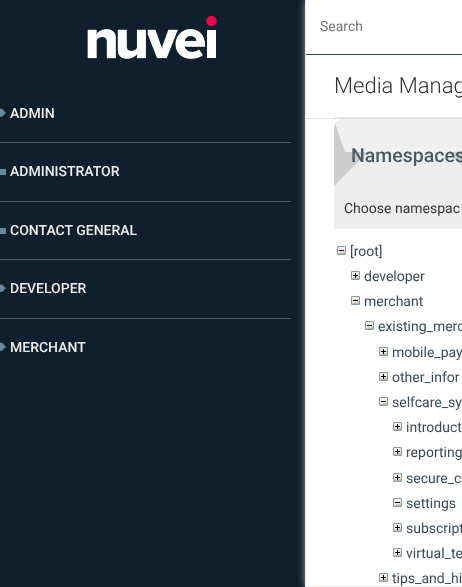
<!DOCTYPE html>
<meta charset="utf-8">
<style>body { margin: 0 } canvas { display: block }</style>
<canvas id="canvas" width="462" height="587"></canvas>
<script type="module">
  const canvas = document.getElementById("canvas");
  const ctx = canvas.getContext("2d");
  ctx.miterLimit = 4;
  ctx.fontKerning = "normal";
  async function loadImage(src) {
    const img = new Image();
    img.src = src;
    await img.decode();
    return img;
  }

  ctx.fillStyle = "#ffffff";
  ctx.fillRect(0, 0, 462, 587);
  ctx.fillStyle = "#101f2d";
  ctx.fillRect(0, 0, 305, 587);
  ctx.drawImage(await loadImage("img1.png"), 87, 15, 130, 44);
  ctx.drawImage(await loadImage("img2.png"), 0, 108, 6, 9);
  ctx.font = "500 14px Roboto";
  ctx.fillStyle = "#eeeeee";
  ctx.fillText("ADMIN", 10, 118);
  ctx.fillStyle = "#455a64";
  ctx.fillRect(0, 142, 291, 1);
  ctx.fillStyle = "#638c9c";
  ctx.fillRect(0, 169, 6, 6);
  ctx.fillStyle = "#eeeeee";
  ctx.fillText("ADMINISTRATOR", 10, 176);
  ctx.fillStyle = "#455a64";
  ctx.fillRect(0, 201, 291, 1);
  ctx.fillStyle = "#638c9c";
  ctx.fillRect(0, 228, 6, 6);
  ctx.fillStyle = "#eeeeee";
  ctx.fillText("CONTACT GENERAL", 10, 235);
  ctx.fillStyle = "#455a64";
  ctx.fillRect(0, 259, 291, 1);
  ctx.drawImage(await loadImage("img3.png"), 0, 284, 6, 8);
  ctx.fillStyle = "#eeeeee";
  ctx.fillText("DEVELOPER", 10, 293);
  ctx.fillStyle = "#455a64";
  ctx.fillRect(0, 318, 291, 1);
  ctx.drawImage(await loadImage("img2.png"), 0, 342, 6, 9);
  ctx.fillStyle = "#eeeeee";
  ctx.fillText("MERCHANT", 10, 352);
  ctx.fillStyle = "#999999";
  ctx.filter = "blur(3.5px)";
  ctx.beginPath();
  ctx.roundRect(305, 0, 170, 587, 2);
  ctx.fill();
  ctx.filter = "none";
  ctx.fillStyle = "#ffffff";
  ctx.beginPath();
  ctx.roundRect(305.5, 0.5, 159, 586, 1.5);
  ctx.fill();
  ctx.strokeStyle = "#eeeeee";
  ctx.stroke();
  ctx.fillRect(306, 0, 156, 2);
  ctx.fillStyle = "#394c56";
  ctx.fillRect(306, 54, 156, 1);
  ctx.font = "14px Roboto";
  ctx.fillStyle = "#757575";
  ctx.fillText("Search", 320, 31);
  ctx.fillStyle = "#e2e3e3";
  ctx.fillRect(334, 117, 128, 1);
  ctx.font = "300 22px Roboto";
  ctx.fillStyle = "#333333";
  ctx.fillText("Media Manag", 334, 93);
  ctx.fillStyle = "#f0f0f0";
  ctx.beginPath();
  ctx.moveTo(344, 119);
  ctx.lineTo(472, 119);
  ctx.bezierCurveTo(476, 119, 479, 121, 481, 123);
  ctx.lineTo(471, 152);
  ctx.lineTo(345, 152);
  ctx.lineTo(335, 123);
  ctx.bezierCurveTo(337, 121, 340, 119, 344, 119);
  ctx.closePath();
  ctx.fill();
  ctx.fillStyle = "#cccccc";
  ctx.beginPath();
  ctx.moveTo(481, 123);
  ctx.lineTo(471, 152);
  ctx.lineTo(448, 152);
  ctx.lineTo(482, 186);
  ctx.lineTo(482, 129);
  ctx.bezierCurveTo(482, 127, 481, 125, 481, 123);
  ctx.closePath();
  ctx.fill();
  ctx.fillStyle = "#eeeeee";
  ctx.fillRect(334, 185, 128, 44);
  ctx.beginPath();
  ctx.moveTo(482, 186);
  ctx.lineTo(448, 152);
  ctx.lineTo(368, 152);
  ctx.lineTo(334, 186);
  ctx.closePath();
  ctx.fill();
  ctx.fillStyle = "#cccccc";
  ctx.beginPath();
  ctx.moveTo(334, 186);
  ctx.lineTo(334, 129);
  ctx.bezierCurveTo(334, 127, 335, 125, 335, 123);
  ctx.lineTo(345, 152);
  ctx.lineTo(368, 152);
  ctx.closePath();
  ctx.fill();
  ctx.font = "500 19.5px Roboto";
  ctx.fillStyle = "#4b5a64";
  ctx.fillText("Namespaces", 351, 162);
  ctx.font = "14px Roboto";
  ctx.fillStyle = "#333333";
  ctx.fillText("Choose namespac", 344, 213);
  ctx.drawImage(await loadImage("img4.png"), 337, 246, 9, 9);
  ctx.fillStyle = "#394c56";
  ctx.fillText("[root]", 350, 256);
  ctx.drawImage(await loadImage("img5.png"), 351, 271, 9, 9);
  ctx.fillText("developer", 364, 281);
  ctx.drawImage(await loadImage("img4.png"), 351, 296, 9, 9);
  ctx.fillText("merchant", 364, 306);
  ctx.drawImage(await loadImage("img4.png"), 365, 321, 9, 9);
  ctx.fillText("existing_merc", 378, 331);
  ctx.drawImage(await loadImage("img5.png"), 379, 347, 9, 9);
  ctx.fillText("mobile_pay", 392, 357);
  ctx.drawImage(await loadImage("img5.png"), 379, 372, 9, 9);
  ctx.fillText("other_infor", 392, 382);
  ctx.drawImage(await loadImage("img4.png"), 379, 397, 9, 9);
  ctx.fillText("selfcare_sy", 392, 407);
  ctx.drawImage(await loadImage("img5.png"), 393, 422, 9, 9);
  ctx.fillText("introduct", 406, 432);
  ctx.drawImage(await loadImage("img5.png"), 393, 447, 9, 9);
  ctx.fillText("reporting", 406, 457);
  ctx.drawImage(await loadImage("img5.png"), 393, 473, 9, 9);
  ctx.fillText("secure_c", 406, 483);
  ctx.drawImage(await loadImage("img4.png"), 393, 498, 9, 9);
  ctx.fillText("settings", 406, 508);
  ctx.drawImage(await loadImage("img5.png"), 393, 523, 9, 9);
  ctx.fillText("subscript", 406, 533);
  ctx.drawImage(await loadImage("img5.png"), 393, 548, 9, 9);
  ctx.fillText("virtual_te", 406, 558);
  ctx.drawImage(await loadImage("img5.png"), 379, 573, 9, 9);
  ctx.fillText("tips_and_hi", 392, 583);
  ctx.fillStyle = "#e2e3e3";
  ctx.fillRect(306, 118, 156, 1);
</script>
